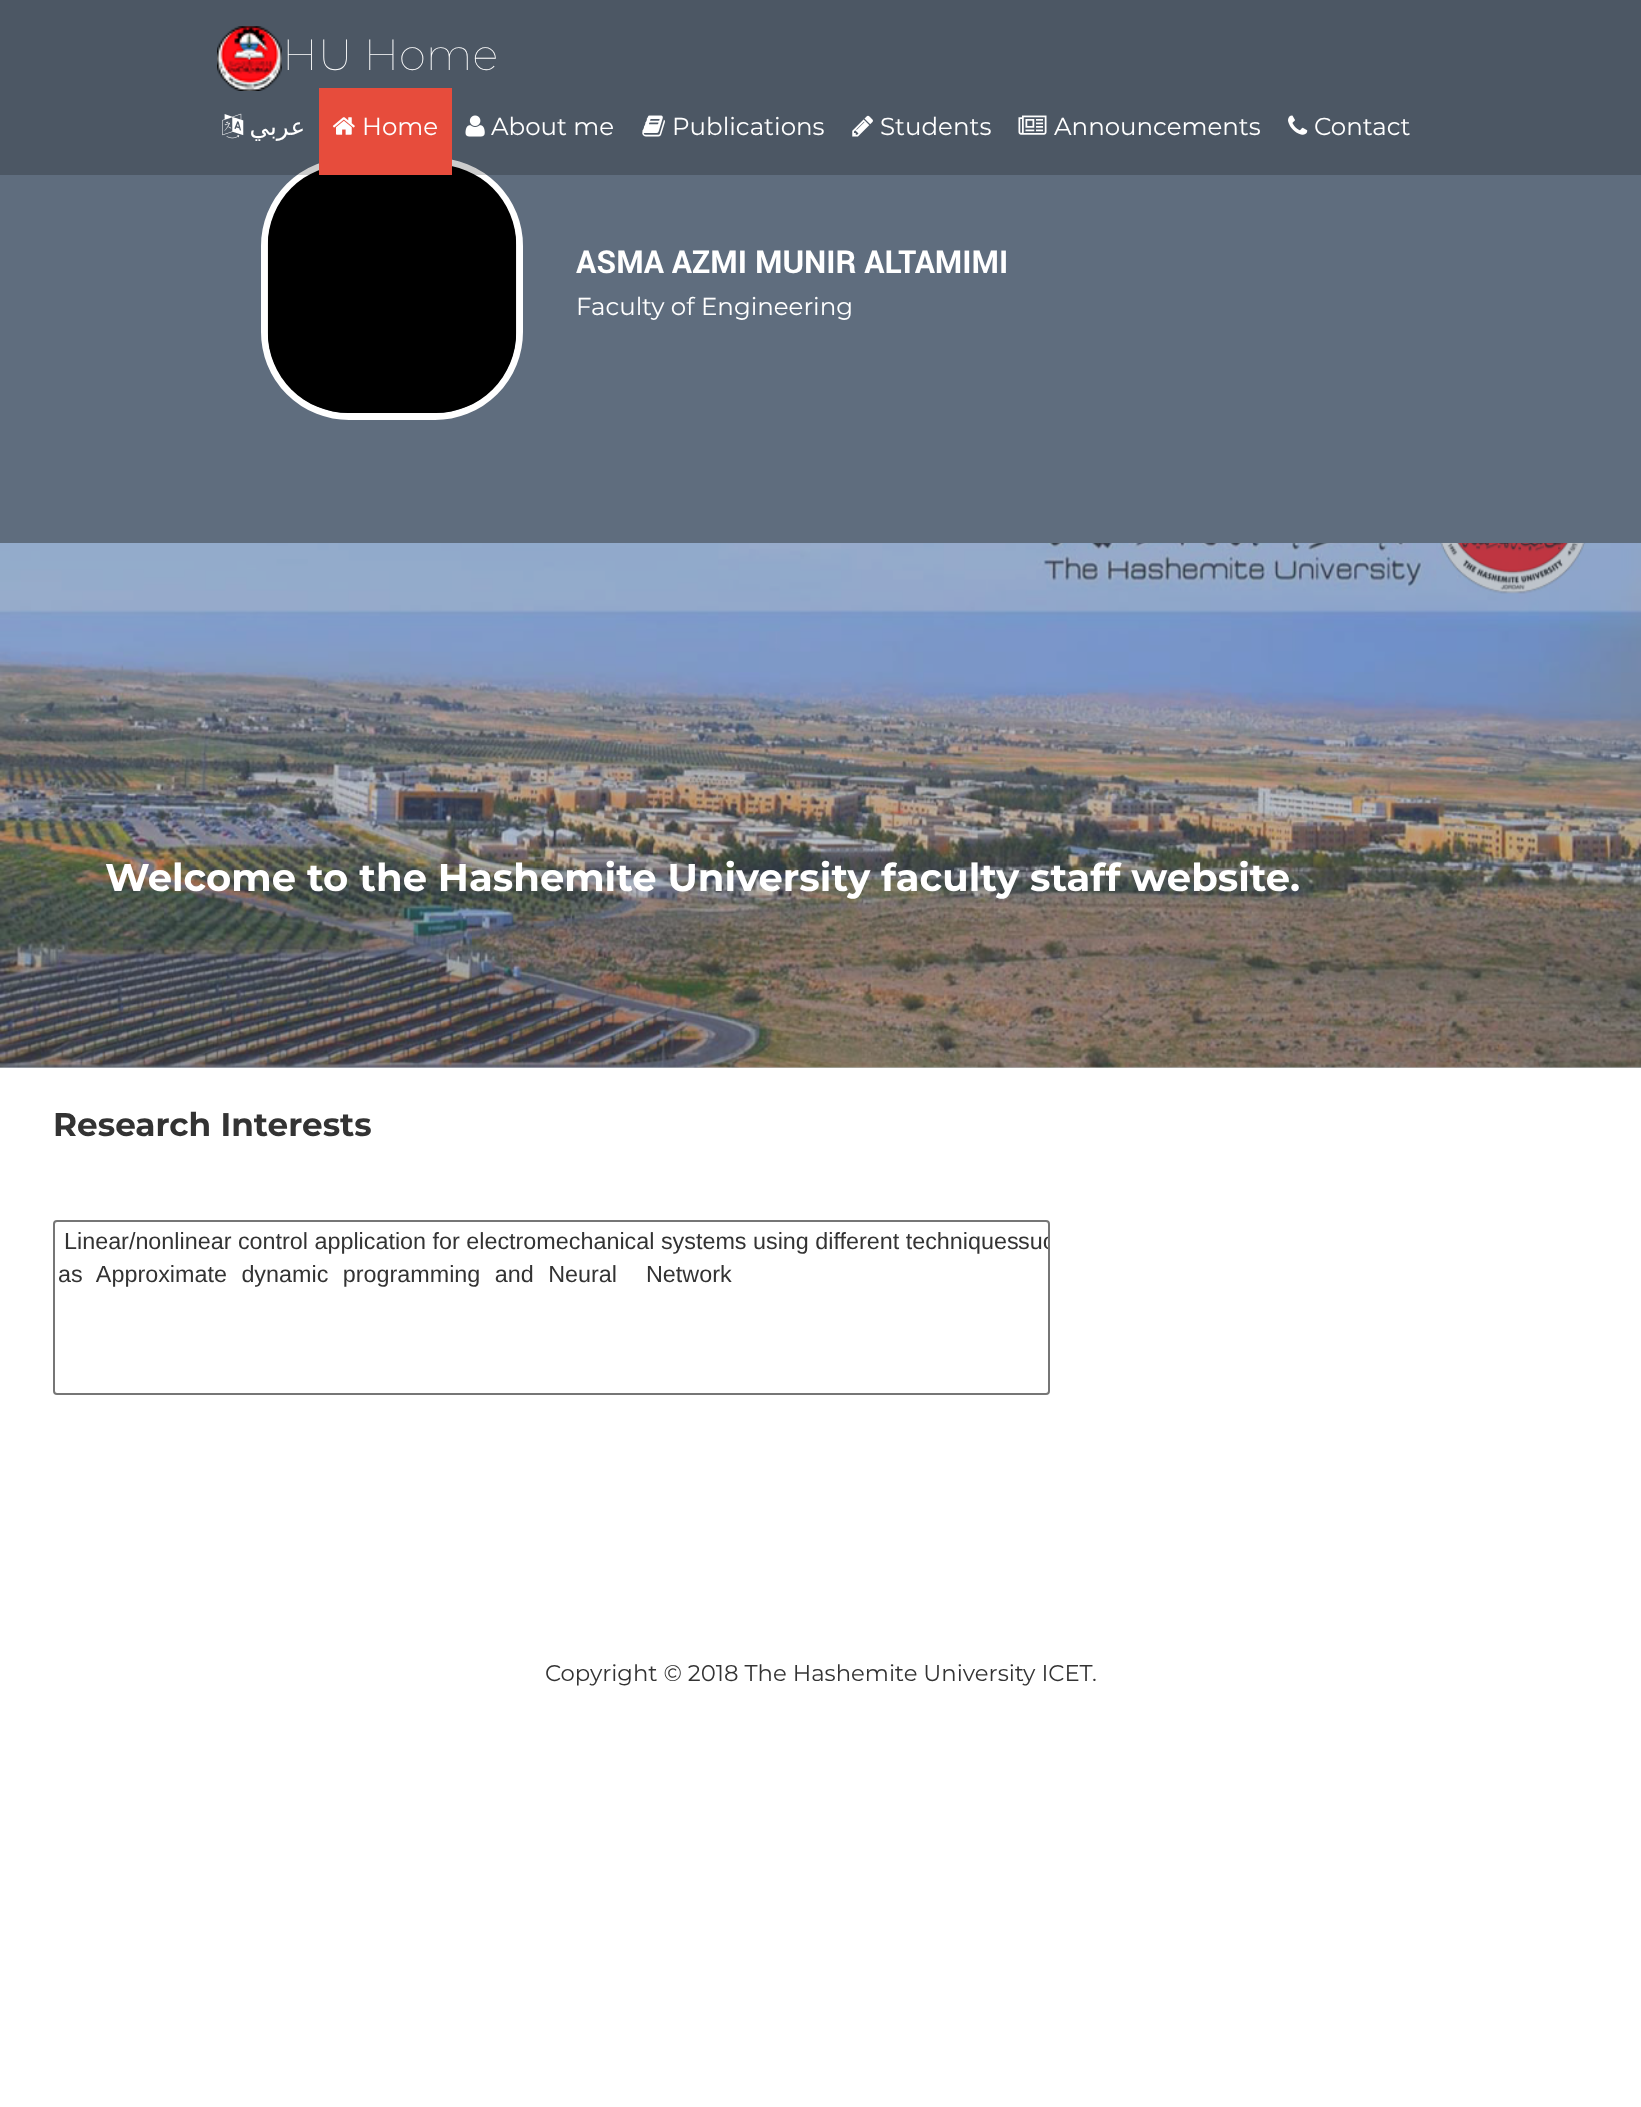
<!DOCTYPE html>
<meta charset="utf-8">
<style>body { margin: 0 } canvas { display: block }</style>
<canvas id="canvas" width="1641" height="2107"></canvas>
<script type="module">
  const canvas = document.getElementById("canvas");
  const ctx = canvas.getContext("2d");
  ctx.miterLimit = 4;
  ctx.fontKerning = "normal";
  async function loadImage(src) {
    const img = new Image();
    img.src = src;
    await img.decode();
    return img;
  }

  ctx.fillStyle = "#ffffff";
  ctx.fillRect(0, 0, 1641, 2107);
  ctx.fillStyle = "#bfc5cb";
  ctx.fillRect(0, 1066, 1641, 2);
  ctx.fillStyle = "#5f6d7e";
  ctx.fillRect(0, 0, 1641, 543);
  ctx.beginPath();
  ctx.roundRect(264.5, 161.5, 255, 255, 84.5);
  ctx.strokeStyle = "#ffffff";
  ctx.lineWidth = 7;
  ctx.stroke();
  ctx.drawImage(await loadImage("img9.png"), 267, 166, 250, 247);
  ctx.fillStyle = "rgba(0, 0, 0, 0.2)";
  ctx.fillRect(0, 0, 1641, 175);
  ctx.drawImage(await loadImage("img1.png"), 217, 26, 65, 65);
  ctx.font = "100 43.75px Montserrat";
  ctx.fillStyle = "#ffffff";
  ctx.fillText("HU Home", 282, 70);
  ctx.drawImage(await loadImage("img2.png"), 222, 113, 22, 26);
  ctx.direction = "rtl";
  ctx.font = "24.5px DejaVu Sans";
  ctx.fillText("عربي", 305, 135);
  ctx.fillStyle = "#e74c3c";
  ctx.fillRect(319, 88, 133, 87);
  ctx.drawImage(await loadImage("img3.png"), 332, 117, 23, 18);
  ctx.direction = "ltr";
  ctx.font = "24.5px Montserrat";
  ctx.fillStyle = "#ffffff";
  ctx.fillText("Home", 362, 135);
  ctx.drawImage(await loadImage("img4.png"), 465, 115, 20, 22);
  ctx.fillText("About me", 491, 135);
  ctx.drawImage(await loadImage("img5.png"), 642, 115, 23, 22);
  ctx.fillText("Publications", 672, 135);
  ctx.drawImage(await loadImage("img6.png"), 852, 115, 21, 22);
  ctx.fillText("Students", 880, 135);
  ctx.drawImage(await loadImage("img7.png"), 1018, 115, 29, 20);
  ctx.fillText("Announcements", 1054, 135);
  ctx.drawImage(await loadImage("img8.png"), 1288, 115, 20, 20);
  ctx.fillText("Contact", 1314, 135);
  ctx.font = "bold 31.5px roboto";
  ctx.fillText("ASMA AZMI MUNIR ALTAMIMI", 576, 273);
  ctx.font = "24.5px Montserrat";
  ctx.fillText("Faculty of Engineering", 576, 315);
  ctx.drawImage(await loadImage("img10.png"), 0, 543, 1641, 525);
  ctx.font = "bold 38.5px Montserrat";
  ctx.fillText("Welcome to the Hashemite University faculty staff website.", 105, 891);
  ctx.font = "bold 32.75px Montserrat";
  ctx.fillStyle = "#333333";
  ctx.fillText("Research Interests", 53, 1136);
  ctx.beginPath();
  ctx.roundRect(54, 1221, 995, 173, 3);
  ctx.strokeStyle = "#767676";
  ctx.lineWidth = 2;
  ctx.stroke();
  ctx.font = "23.35px Liberation Sans";
  ctx.fillText("Linear/nonlinear control application for electromechanical systems using different techniques", 64, 1249);
  ctx.save();
  ctx.beginPath();
  ctx.rect(54, 1222, 994, 171);
  ctx.clip();
  ctx.fillText("suc", 1018, 1249);
  ctx.restore();
  ctx.wordSpacing = "8px";
  ctx.fillText("as Approximate dynamic programming and Neural  Network", 58, 1282);
  ctx.wordSpacing = "0px";
  ctx.font = "22.75px Montserrat";
  ctx.fillText("Copyright © 2018 The Hashemite University ICET.", 545, 1681);
</script>
